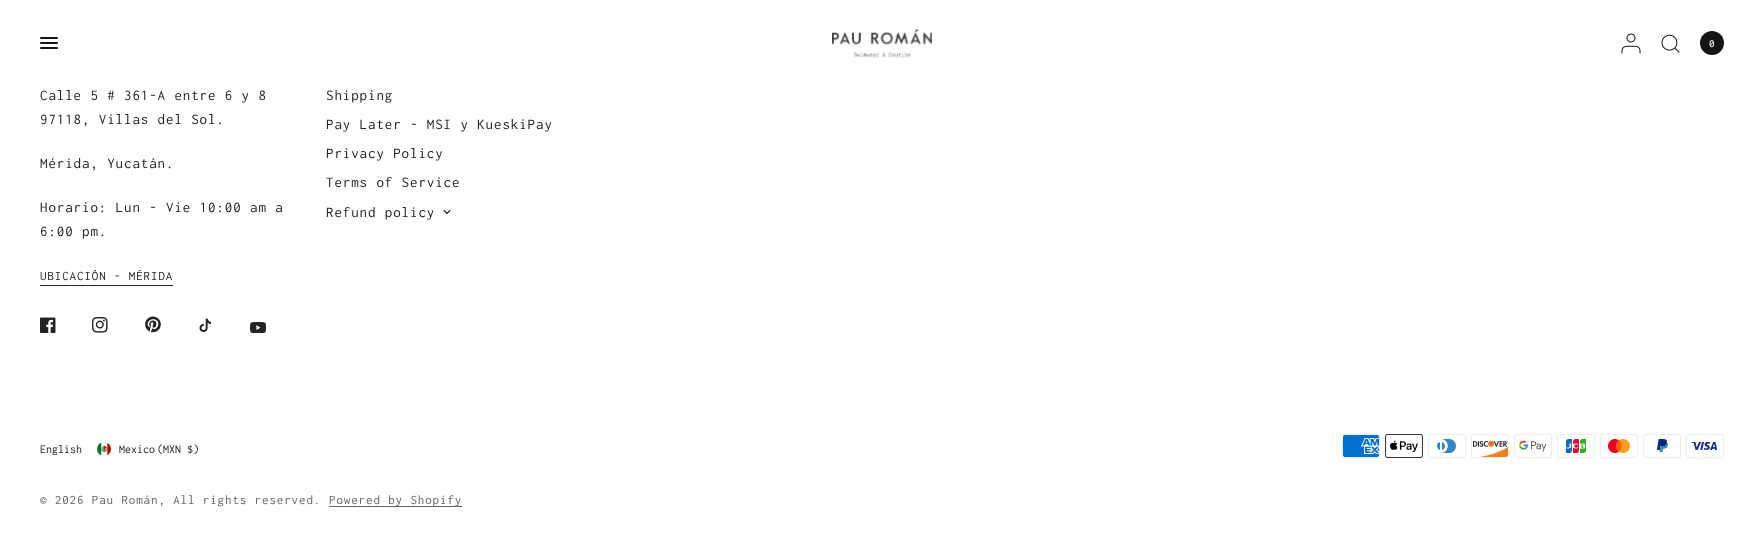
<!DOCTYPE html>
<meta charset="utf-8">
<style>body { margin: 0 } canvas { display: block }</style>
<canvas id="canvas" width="1764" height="548"></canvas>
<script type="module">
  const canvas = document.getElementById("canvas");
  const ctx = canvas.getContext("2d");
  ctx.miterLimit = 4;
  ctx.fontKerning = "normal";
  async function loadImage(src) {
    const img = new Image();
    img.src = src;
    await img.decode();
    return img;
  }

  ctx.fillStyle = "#ffffff";
  ctx.fillRect(0, 0, 1764, 548);
  ctx.fillStyle = "#151515";
  ctx.beginPath();
  ctx.roundRect(40, 37, 18, 2, 1);
  ctx.fill();
  ctx.beginPath();
  ctx.roundRect(40, 42, 18, 2, 1);
  ctx.fill();
  ctx.beginPath();
  ctx.roundRect(40, 47, 18, 2, 1);
  ctx.fill();
  ctx.drawImage(await loadImage("img1.png"), 832, 29, 100, 29);
  ctx.drawImage(await loadImage("img2.png"), 1621, 33, 20, 21);
  ctx.drawImage(await loadImage("img3.png"), 1661, 34, 19, 19);
  ctx.beginPath();
  ctx.arc(1712, 43, 12, 0, Math.PI * 2);
  ctx.fill();
  ctx.letterSpacing = "0.9px";
  ctx.font = "500 11px Inconsolata";
  ctx.fillStyle = "#ffffff";
  ctx.fillText("0", 1709, 47);
  ctx.font = "15px Inconsolata";
  ctx.fillStyle = "#232323";
  ctx.fillText("Calle 5 # 361-A entre 6 y 8", 40, 100);
  ctx.fillText("97118, Villas del Sol.", 40, 124);
  ctx.fillText("Mérida, Yucatán.", 40, 168);
  ctx.fillText("Horario: Lun - Vie 10:00 am a", 40, 212);
  ctx.fillText("6:00 pm.", 40, 236);
  ctx.font = "13px Inconsolata";
  ctx.fillText("UBICACIÓN - MÉRIDA", 40, 280);
  ctx.fillRect(40, 285, 133, 1);
  ctx.drawImage(await loadImage("img4.png"), 40, 317, 16, 16);
  ctx.drawImage(await loadImage("img5.png"), 92, 317, 16, 16);
  ctx.drawImage(await loadImage("img6.png"), 145, 316, 16, 17);
  ctx.drawImage(await loadImage("img7.png"), 199, 318, 12, 14);
  ctx.drawImage(await loadImage("img8.png"), 250, 322, 16, 11);
  ctx.font = "15px Inconsolata";
  ctx.fillText("Shipping", 326, 100);
  ctx.fillText("Pay Later - MSI y KueskiPay", 326, 129);
  ctx.fillText("Privacy Policy", 326, 158);
  ctx.fillText("Terms of Service", 326, 187);
  ctx.fillText("Refund policy", 326, 217);
  ctx.beginPath();
  ctx.moveTo(450, 210.5);
  ctx.lineTo(447, 213.5);
  ctx.lineTo(444, 210.5);
  ctx.strokeStyle = "#232323";
  ctx.lineWidth = 1.1;
  ctx.lineCap = "round";
  ctx.lineJoin = "round";
  ctx.stroke();
  ctx.letterSpacing = "0px";
  ctx.font = "12px Inconsolata";
  ctx.fillText("English", 40, 453);
  ctx.drawImage(await loadImage("img9.png"), 97, 442, 14, 14);
  ctx.fillText("Mexico", 119, 453);
  ctx.fillText("(MXN $)", 157, 453);
  ctx.drawImage(await loadImage("img10.png"), 1342, 434, 38, 24);
  ctx.drawImage(await loadImage("img11.png"), 1385, 434, 38, 24);
  ctx.drawImage(await loadImage("img12.png"), 1428, 434, 38, 24);
  ctx.drawImage(await loadImage("img13.png"), 1471, 434, 38, 24);
  ctx.drawImage(await loadImage("img14.png"), 1514, 434, 38, 24);
  ctx.drawImage(await loadImage("img15.png"), 1557, 434, 38, 24);
  ctx.drawImage(await loadImage("img16.png"), 1600, 434, 38, 24);
  ctx.drawImage(await loadImage("img17.png"), 1643, 434, 38, 24);
  ctx.drawImage(await loadImage("img18.png"), 1686, 434, 38, 24);
  ctx.letterSpacing = "0.9px";
  ctx.font = "13px Inconsolata";
  ctx.fillStyle = "#656565";
  ctx.fillText("© 2026 Pau Román, All rights reserved.", 40, 504);
  ctx.fillRect(329, 506, 133, 1);
  ctx.fillText("Powered by Shopify", 329, 504);
</script>
